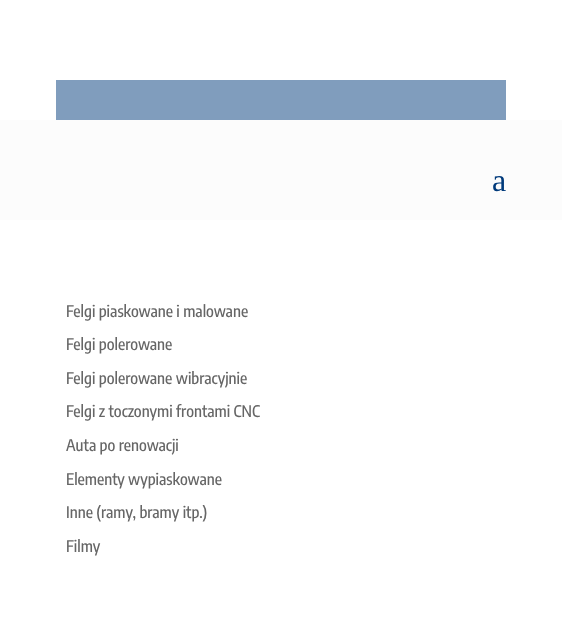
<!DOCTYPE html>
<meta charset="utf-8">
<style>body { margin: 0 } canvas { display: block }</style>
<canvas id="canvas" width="562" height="632"></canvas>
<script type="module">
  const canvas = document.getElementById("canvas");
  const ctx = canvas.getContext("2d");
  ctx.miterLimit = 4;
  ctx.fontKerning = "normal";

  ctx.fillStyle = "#ffffff";
  ctx.fillRect(0, 0, 562, 632);
  ctx.fillStyle = "#fcfcfc";
  ctx.fillRect(0, 120, 562, 100);
  ctx.font = "32px Liberation Serif";
  ctx.fillStyle = "#003a7b";
  ctx.fillText("a", 492, 191);
  ctx.fillStyle = "#809dbd";
  ctx.fillRect(56, 80, 450, 40);
  ctx.font = "500 16px Encode Sans Condensed";
  ctx.fillStyle = "#666666";
  ctx.fillText("Felgi piaskowane i malowane", 66, 317);
  ctx.fillText("Felgi polerowane", 66, 350);
  ctx.fillText("Felgi polerowane wibracyjnie", 66, 384);
  ctx.fillText("Felgi z toczonymi frontami CNC", 66, 417);
  ctx.fillText("Auta po renowacji", 66, 451);
  ctx.fillText("Elementy wypiaskowane", 66, 485);
  ctx.fillText("Inne (ramy, bramy itp.)", 66, 518);
  ctx.fillText("Filmy", 66, 552);
</script>
